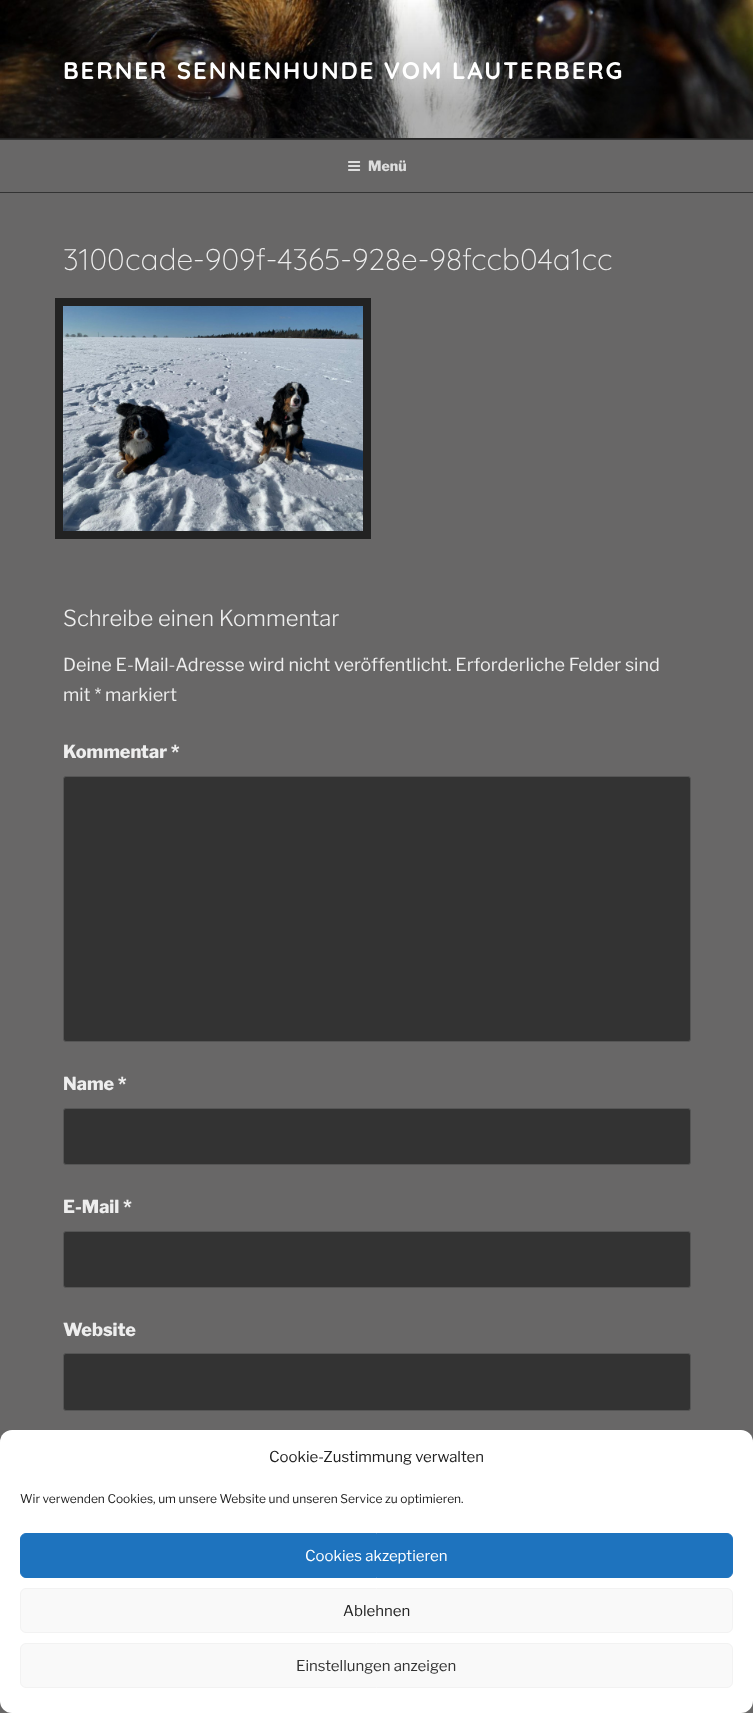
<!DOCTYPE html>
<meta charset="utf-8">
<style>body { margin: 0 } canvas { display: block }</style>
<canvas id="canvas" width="753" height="1713"></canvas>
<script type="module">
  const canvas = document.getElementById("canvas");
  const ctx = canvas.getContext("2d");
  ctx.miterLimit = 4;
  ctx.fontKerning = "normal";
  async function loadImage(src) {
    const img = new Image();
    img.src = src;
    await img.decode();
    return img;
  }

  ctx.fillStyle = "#686767";
  ctx.fillRect(0, 0, 753, 1713);
  ctx.fillStyle = "#262626";
  ctx.fillRect(0, 138, 753, 1);
  ctx.drawImage(await loadImage("img1.png"), 0, 0, 753, 138);
  ctx.letterSpacing = "1.9px";
  ctx.font = "bold 24px Quicksand";
  ctx.fillStyle = "#ffffff";
  ctx.fillText("BERNER SENNENHUNDE VOM LAUTERBERG", 63, 79);
  ctx.fillStyle = "#333333";
  ctx.fillRect(0, 139, 753, 1);
  ctx.fillRect(0, 192, 753, 1);
  ctx.drawImage(await loadImage("img2.png"), 348, 161, 13, 10);
  ctx.letterSpacing = "0px";
  ctx.font = "100 14px Libre Franklin";
  ctx.fillStyle = "#dddddd";
  ctx.fillText("Menü", 368, 171);
  ctx.font = "300 30px Quicksand";
  ctx.fillStyle = "#eeeeee";
  ctx.fillText("3100cade-909f-4365-928e-98fccb04a1cc", 63, 270);
  ctx.strokeStyle = "#222222";
  ctx.lineWidth = 8;
  ctx.strokeRect(59, 302, 308, 233);
  ctx.drawImage(await loadImage("img3.png"), 63, 306, 300, 225);
  ctx.font = "100 22px 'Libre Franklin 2'";
  ctx.fillText("Schreibe einen Kommentar", 63, 626);
  ctx.font = "100 18px 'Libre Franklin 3'";
  ctx.fillText("Deine E-Mail-Adresse wird nicht veröffentlicht. Erforderliche Felder sind", 63, 671);
  ctx.fillText("mit * markiert", 63, 701);
  ctx.font = "100 18px Libre Franklin";
  ctx.fillText("Kommentar *", 63, 758);
  ctx.fillStyle = "#333333";
  ctx.beginPath();
  ctx.roundRect(63.5, 776.5, 627, 265, 2.5);
  ctx.fill();
  ctx.strokeStyle = "#555555";
  ctx.lineWidth = 1;
  ctx.stroke();
  ctx.fillStyle = "#eeeeee";
  ctx.fillText("Name *", 63, 1090);
  ctx.fillStyle = "#333333";
  ctx.beginPath();
  ctx.roundRect(63.5, 1108.5, 627, 56, 2.5);
  ctx.fill();
  ctx.stroke();
  ctx.fillStyle = "#eeeeee";
  ctx.fillText("E-Mail *", 63, 1213);
  ctx.fillStyle = "#333333";
  ctx.beginPath();
  ctx.roundRect(63.5, 1231.5, 627, 56, 2.5);
  ctx.fill();
  ctx.stroke();
  ctx.fillStyle = "#eeeeee";
  ctx.fillText("Website", 63, 1336);
  ctx.fillStyle = "#333333";
  ctx.beginPath();
  ctx.roundRect(63.5, 1353.5, 627, 57, 2.5);
  ctx.fill();
  ctx.stroke();
  ctx.fillStyle = "#ffffff";
  ctx.beginPath();
  ctx.roundRect(0, 1430, 753, 283, 12);
  ctx.fill();
  ctx.font = "100 15px 'Libre Franklin 3'";
  ctx.fillStyle = "#222222";
  ctx.fillText("Cookie-Zustimmung verwalten", 269, 1462);
  ctx.font = "100 12px 'Libre Franklin 3'";
  ctx.fillText("Wir verwenden Cookies, um unsere Website und unseren Service zu optimieren.", 20, 1503);
  ctx.fillStyle = "#1e73be";
  ctx.beginPath();
  ctx.roundRect(20.5, 1533.5, 712, 44, 5.5);
  ctx.fill();
  ctx.strokeStyle = "#1e73be";
  ctx.stroke();
  ctx.font = "100 15px 'Libre Franklin 3'";
  ctx.fillStyle = "#ffffff";
  ctx.fillText("Cookies akzeptieren", 305, 1561);
  ctx.fillStyle = "#f9f9f9";
  ctx.beginPath();
  ctx.roundRect(20.5, 1588.5, 712, 44, 5.5);
  ctx.fill();
  ctx.strokeStyle = "#f2f2f2";
  ctx.stroke();
  ctx.fillStyle = "#222222";
  ctx.fillText("Ablehnen", 343, 1616);
  ctx.fillStyle = "#f9f9f9";
  ctx.beginPath();
  ctx.roundRect(20.5, 1643.5, 712, 44, 5.5);
  ctx.fill();
  ctx.stroke();
  ctx.fillStyle = "#333333";
  ctx.fillText("Einstellungen anzeigen", 296, 1671);
</script>
